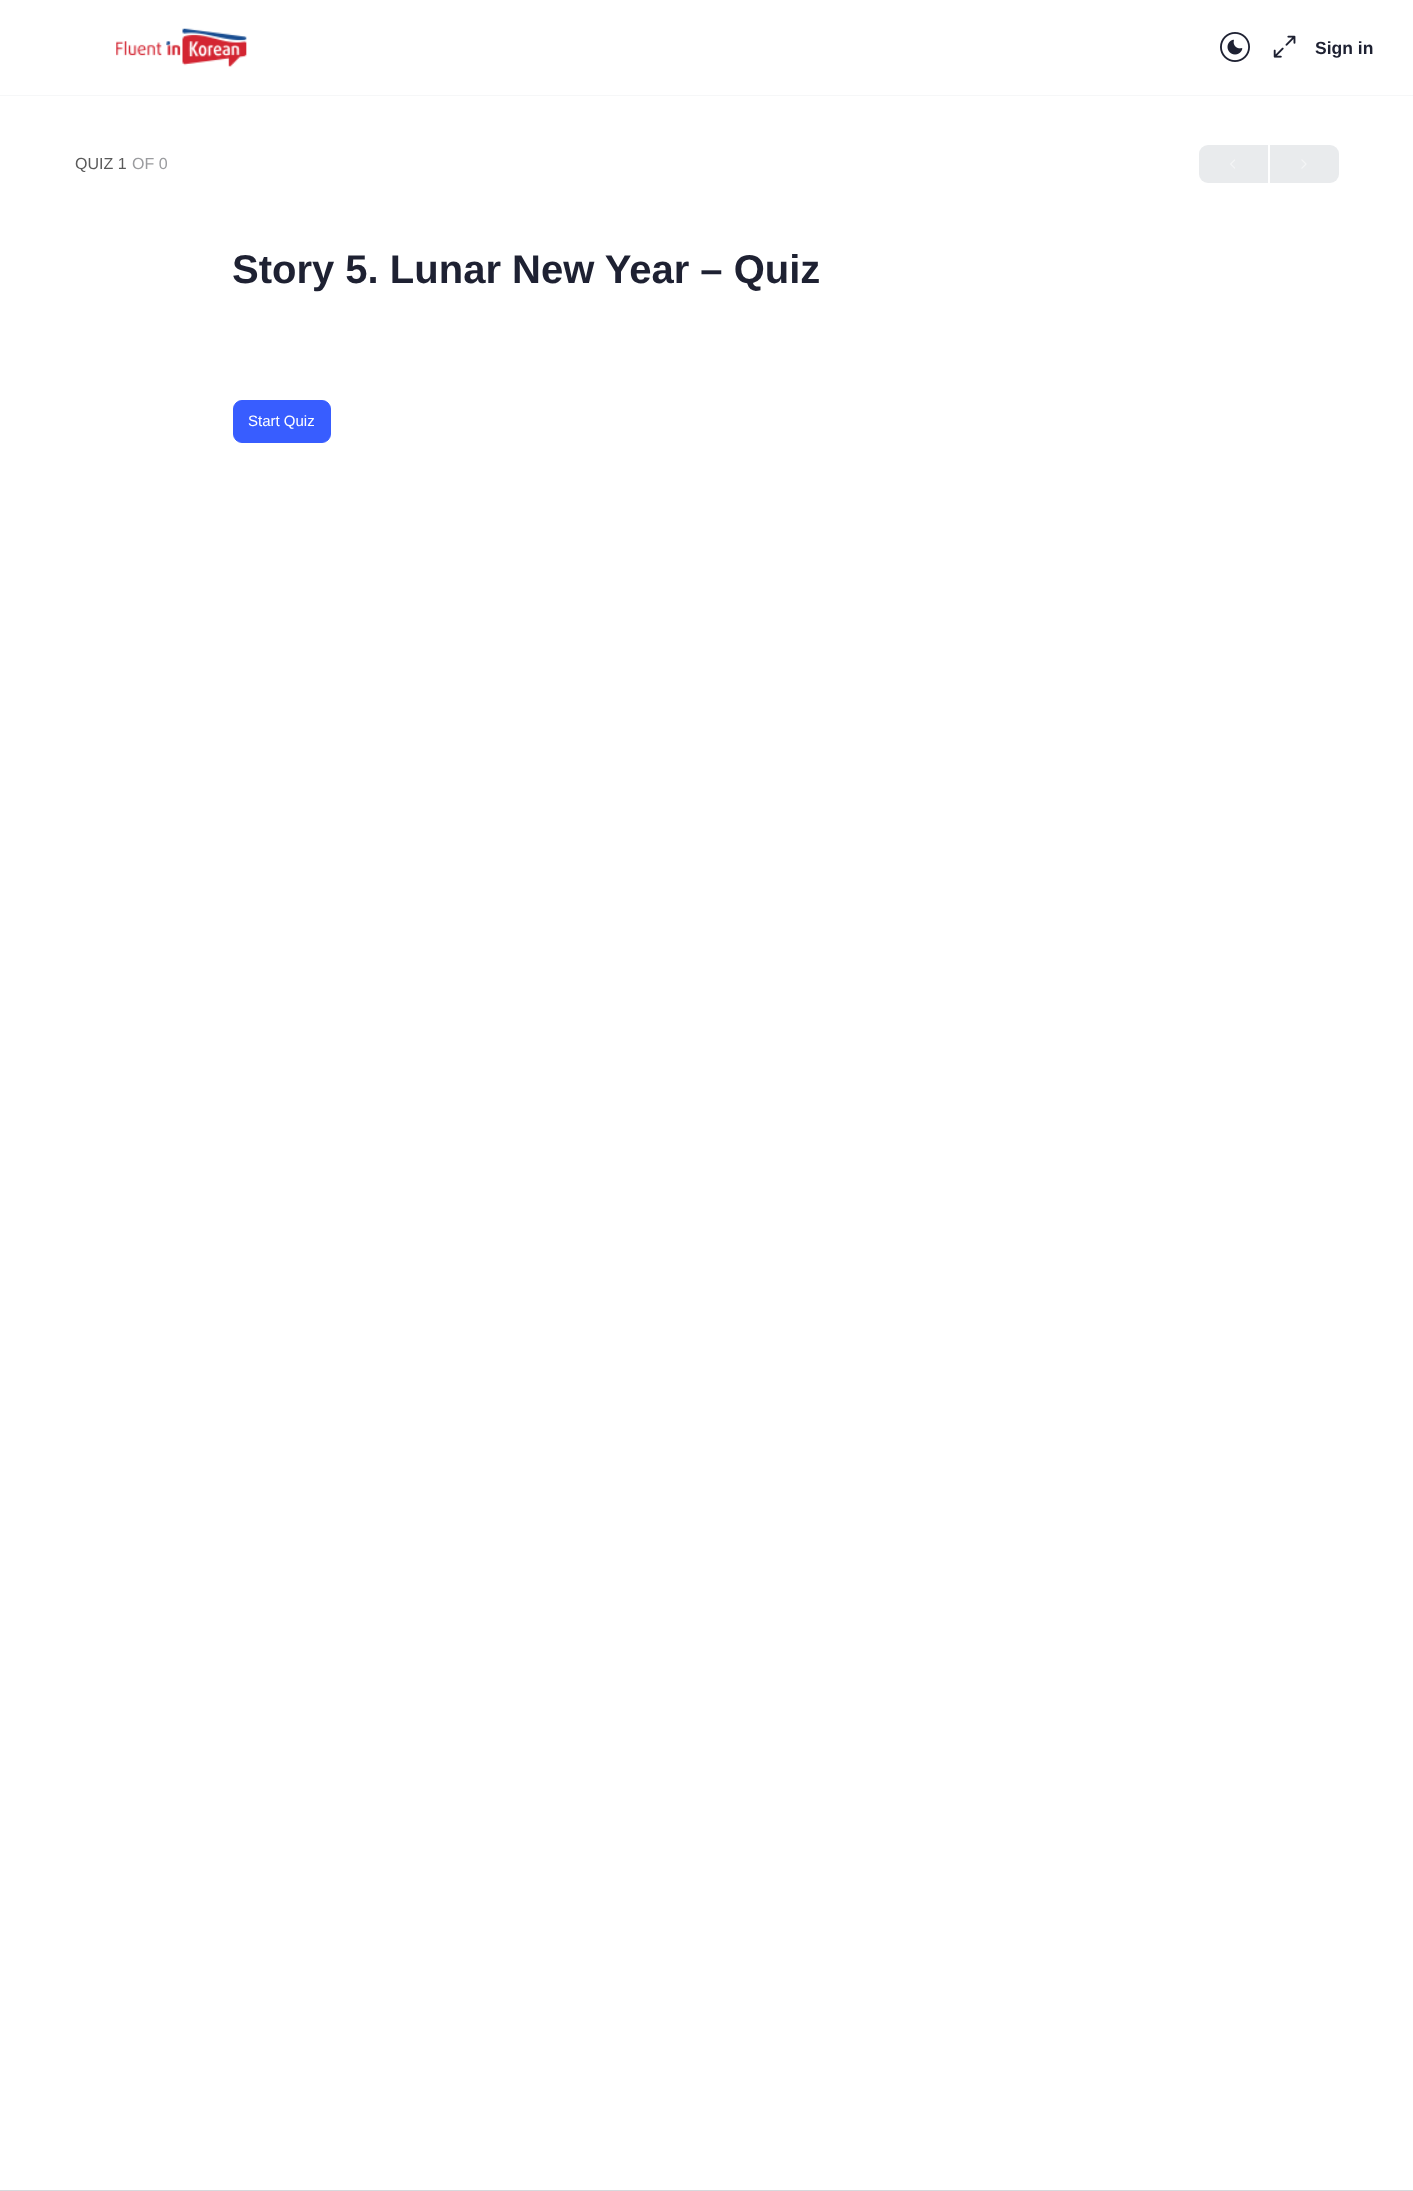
<!DOCTYPE html>
<meta charset="utf-8">
<style>body { margin: 0 } canvas { display: block }</style>
<canvas id="canvas" width="1413" height="2191"></canvas>
<script type="module">
  const canvas = document.getElementById("canvas");
  const ctx = canvas.getContext("2d");
  ctx.miterLimit = 4;
  ctx.fontKerning = "normal";
  async function loadImage(src) {
    const img = new Image();
    img.src = src;
    await img.decode();
    return img;
  }

  ctx.fillStyle = "#ffffff";
  ctx.fillRect(0, 0, 1413, 2191);
  ctx.fillStyle = "#f6f7f8";
  ctx.beginPath();
  ctx.moveTo(0, 95);
  ctx.lineTo(0, 96);
  ctx.lineTo(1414, 96);
  ctx.lineTo(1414, 1);
  ctx.lineTo(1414, 95);
  ctx.closePath();
  ctx.fill();
  ctx.drawImage(await loadImage("img1.png"), 116, 28, 131, 39);
  ctx.drawImage(await loadImage("img2.png"), 1220, 32, 30, 30);
  ctx.drawImage(await loadImage("img3.png"), 1273, 35, 23, 23);
  ctx.font = "bold 17.5px Liberation Sans";
  ctx.fillStyle = "#1e2132";
  ctx.fillText("Sign in", 1315, 54);
  ctx.fillStyle = "#d6d9dd";
  ctx.fillRect(0, 2190, 1413, 1);
  ctx.font = "16px Liberation Sans";
  ctx.fillStyle = "#5a5a5a";
  ctx.fillText("QUIZ 1", 75, 169);
  ctx.fillStyle = "#9b9c9f";
  ctx.fillText("OF 0", 132, 169);
  ctx.fillStyle = "#e9ebed";
  ctx.beginPath();
  ctx.roundRect(1199, 145, 69, 38, [9, 0, 0, 9]);
  ctx.fill();
  ctx.drawImage(await loadImage("img4.png"), 1230, 159, 5, 10);
  ctx.beginPath();
  ctx.roundRect(1270, 145, 69, 38, [0, 9, 9, 0]);
  ctx.fill();
  ctx.drawImage(await loadImage("img5.png"), 1301, 159, 6, 10);
  ctx.font = "bold 40px Liberation Sans";
  ctx.fillStyle = "#1e2132";
  ctx.fillText("Story 5. Lunar New Year – Quiz", 232, 283);
  ctx.fillStyle = "#385dff";
  ctx.beginPath();
  ctx.roundRect(233.5, 400.5, 97, 42, 8.5);
  ctx.fill();
  ctx.strokeStyle = "#385dff";
  ctx.stroke();
  ctx.font = "15px Liberation Sans";
  ctx.fillStyle = "#ffffff";
  ctx.fillText("Start Quiz", 248, 426);
</script>
